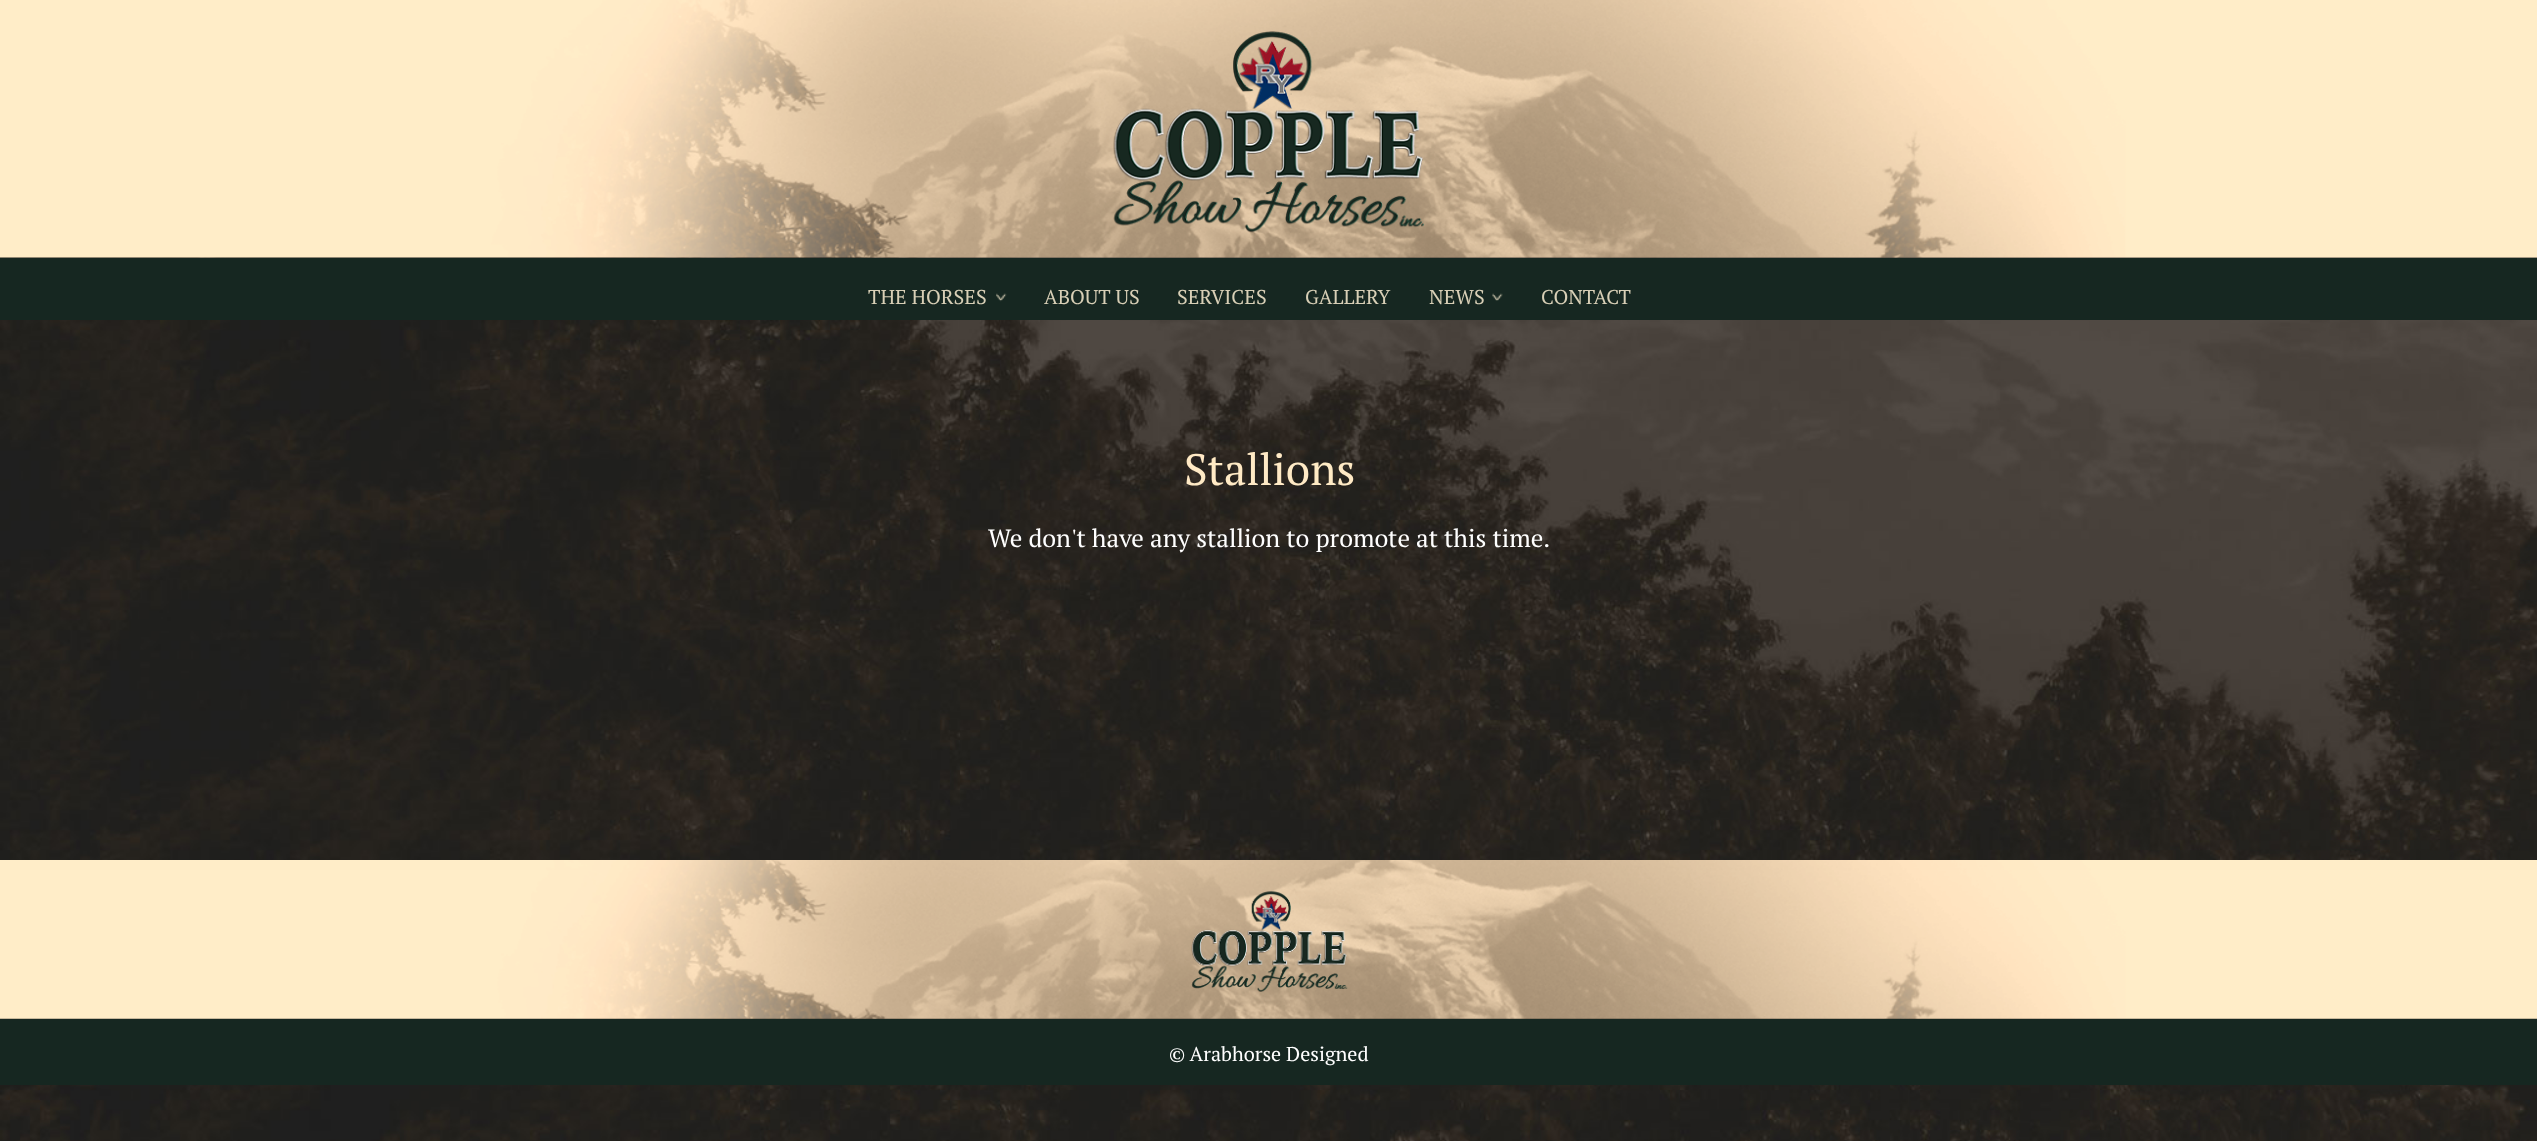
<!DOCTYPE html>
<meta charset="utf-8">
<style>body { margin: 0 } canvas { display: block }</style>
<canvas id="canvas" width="2537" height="1141"></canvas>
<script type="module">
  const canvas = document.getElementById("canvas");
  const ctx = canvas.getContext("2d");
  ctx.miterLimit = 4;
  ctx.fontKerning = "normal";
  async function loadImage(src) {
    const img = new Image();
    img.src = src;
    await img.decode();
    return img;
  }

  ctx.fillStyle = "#ffffff";
  ctx.fillRect(0, 0, 2537, 1141);
  ctx.drawImage(await loadImage("img1.png"), 0, 257, 2537, 884);
  ctx.drawImage(await loadImage("img2.png"), 0, 0, 2537, 258);
  ctx.drawImage(await loadImage("img3.png"), 1113, 31, 312, 202);
  ctx.fillStyle = "#162721";
  ctx.fillRect(0, 258, 2537, 62);
  ctx.font = "20px PT Serif";
  ctx.fillStyle = "#d8cfb6";
  ctx.fillText("THE HORSES", 868, 304);
  ctx.drawImage(await loadImage("img4.png"), 996, 293, 11, 9);
  ctx.fillText("ABOUT US", 1044, 304);
  ctx.fillText("SERVICES", 1177, 304);
  ctx.fillText("GALLERY", 1305, 304);
  ctx.fillText("NEWS", 1429, 304);
  ctx.drawImage(await loadImage("img5.png"), 1492, 293, 11, 8);
  ctx.fillText("CONTACT", 1541, 304);
  ctx.drawImage(await loadImage("img6.png"), 1329, 630, 581, 26);
  ctx.font = "44px PT Serif";
  ctx.fillStyle = "#ffeac5";
  ctx.fillText("Stallions", 1184, 485);
  ctx.font = "25px PT Serif";
  ctx.fillStyle = "#ffffff";
  ctx.fillText("We don't have any stallion to promote at this time.", 988, 547);
  ctx.drawImage(await loadImage("img7.png"), 0, 860, 2537, 159);
  ctx.drawImage(await loadImage("img8.png"), 1191, 891, 157, 101);
  ctx.fillStyle = "#162721";
  ctx.fillRect(0, 1019, 2537, 66);
  ctx.font = "20px PT Serif";
  ctx.fillStyle = "#ffffff";
  ctx.fillText("© Arabhorse Designed", 1169, 1061);
</script>
